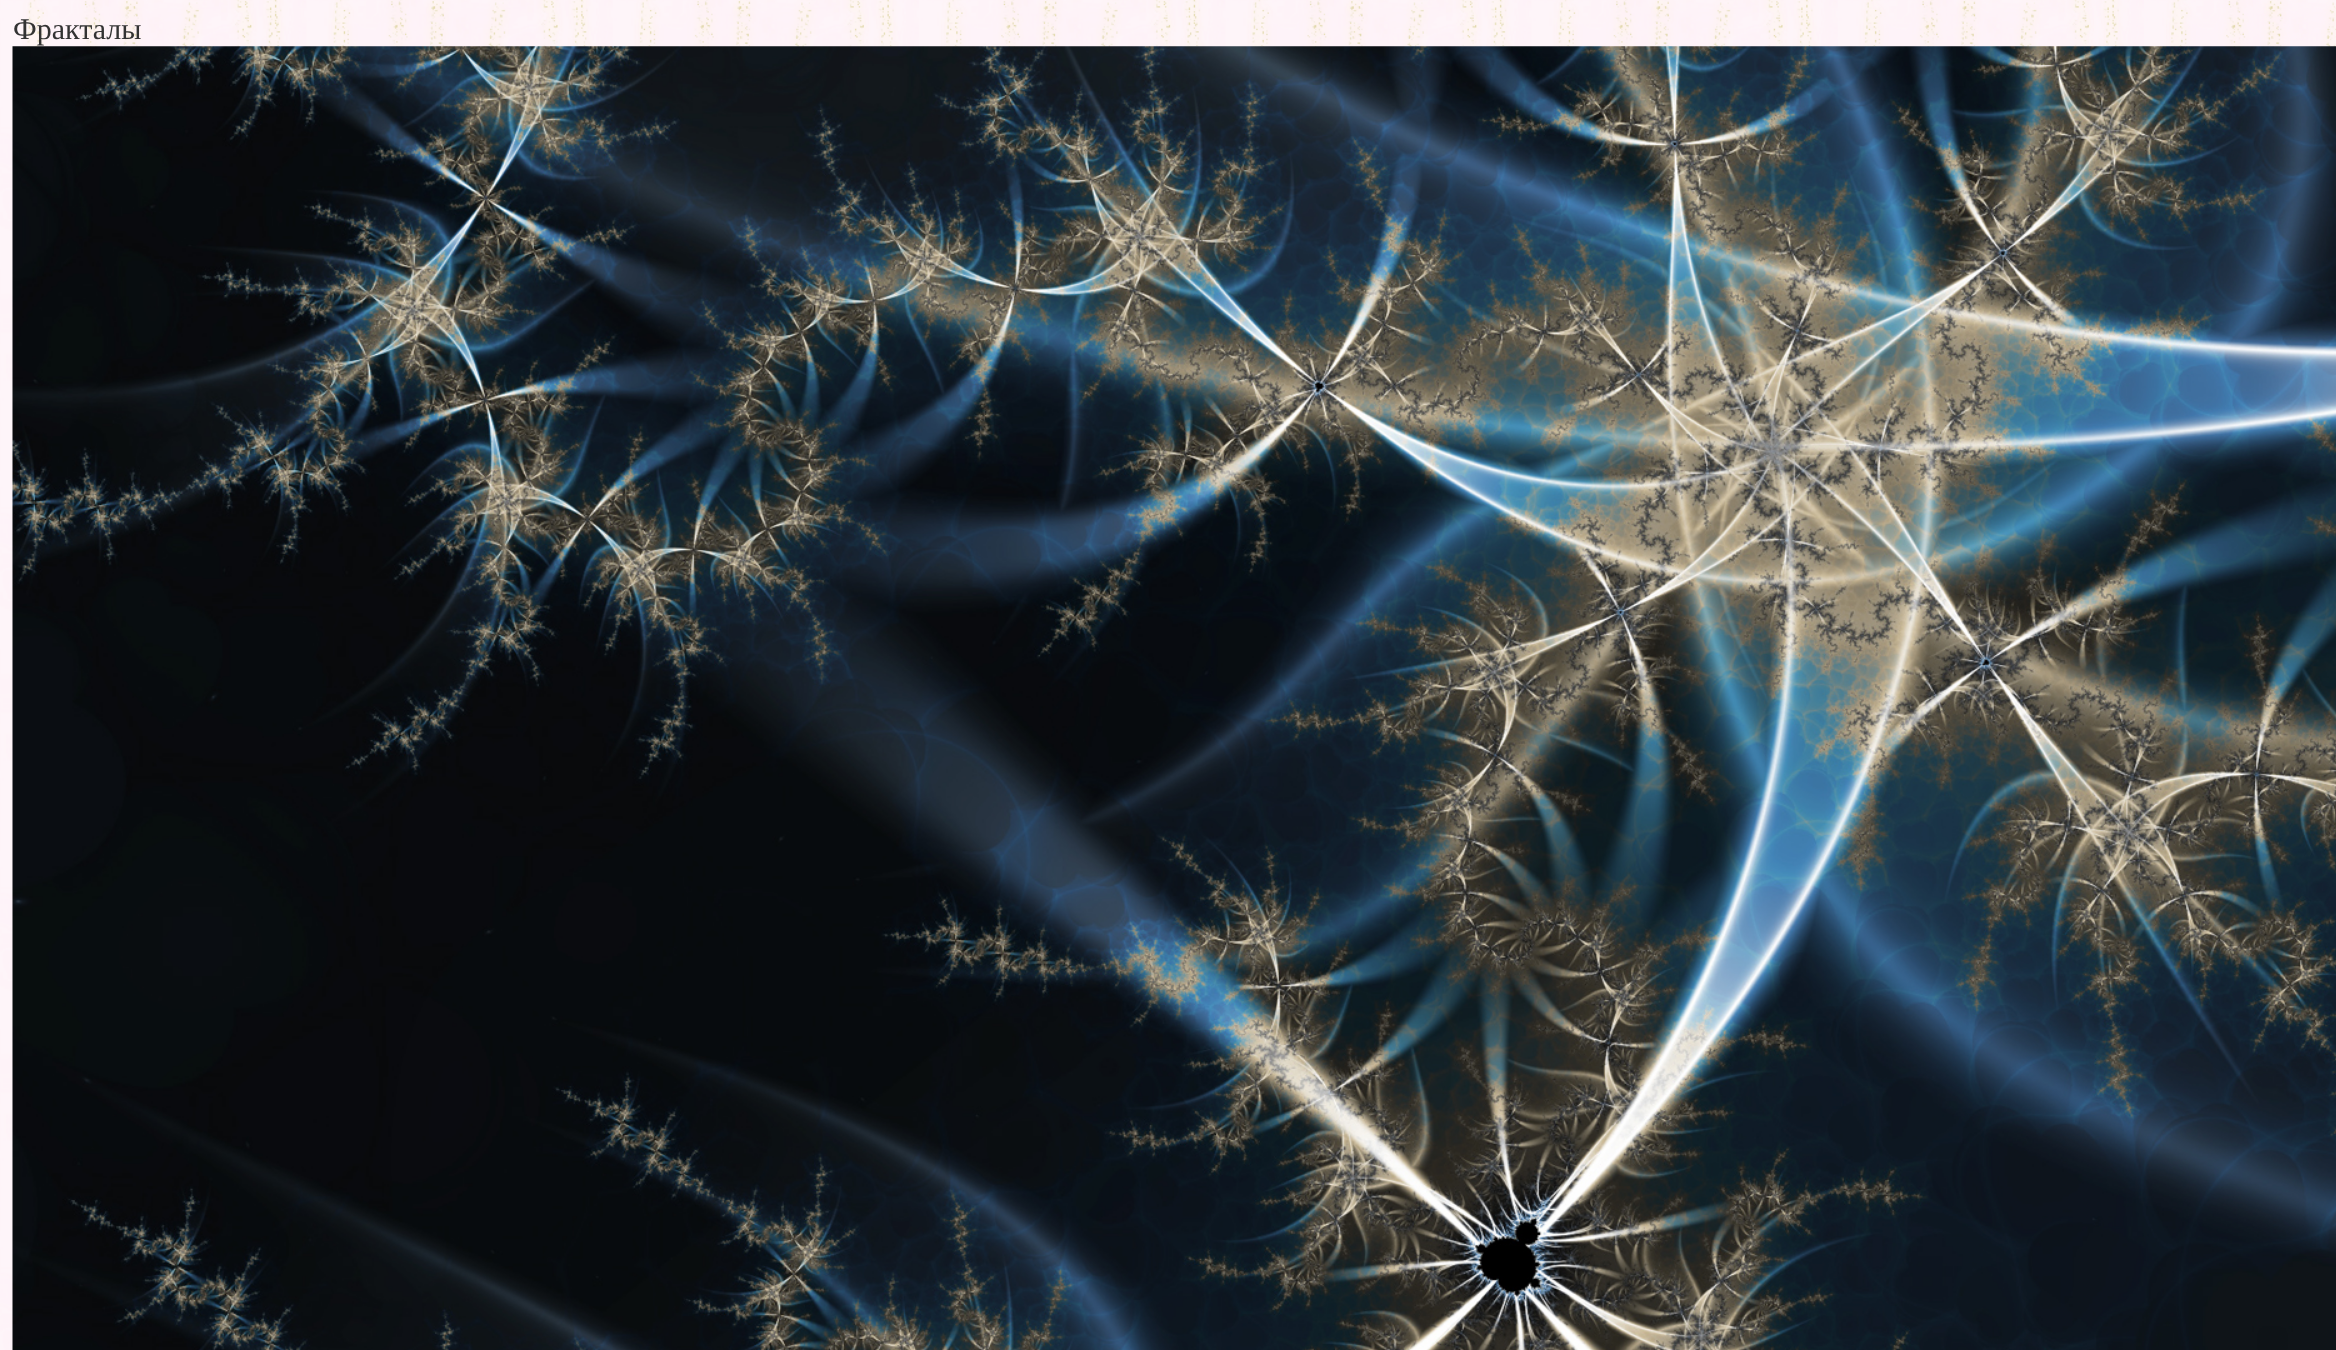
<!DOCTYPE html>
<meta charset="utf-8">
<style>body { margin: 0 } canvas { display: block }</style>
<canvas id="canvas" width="2336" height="1350"></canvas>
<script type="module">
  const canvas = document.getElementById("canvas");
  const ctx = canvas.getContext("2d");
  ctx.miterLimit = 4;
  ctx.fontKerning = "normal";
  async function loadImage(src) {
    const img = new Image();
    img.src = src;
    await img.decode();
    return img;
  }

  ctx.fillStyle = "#ffffff";
  ctx.fillRect(0, 0, 2336, 1350);
  ctx.drawImage(await loadImage("img1.png"), 0, 0, 2336, 1350);
  ctx.font = "30px Liberation Serif";
  ctx.fillStyle = "#333333";
  ctx.fillText("Фракталы", 13, 39);
  ctx.drawImage(await loadImage("img2.png"), 12, 46, 2324, 1304);
</script>
